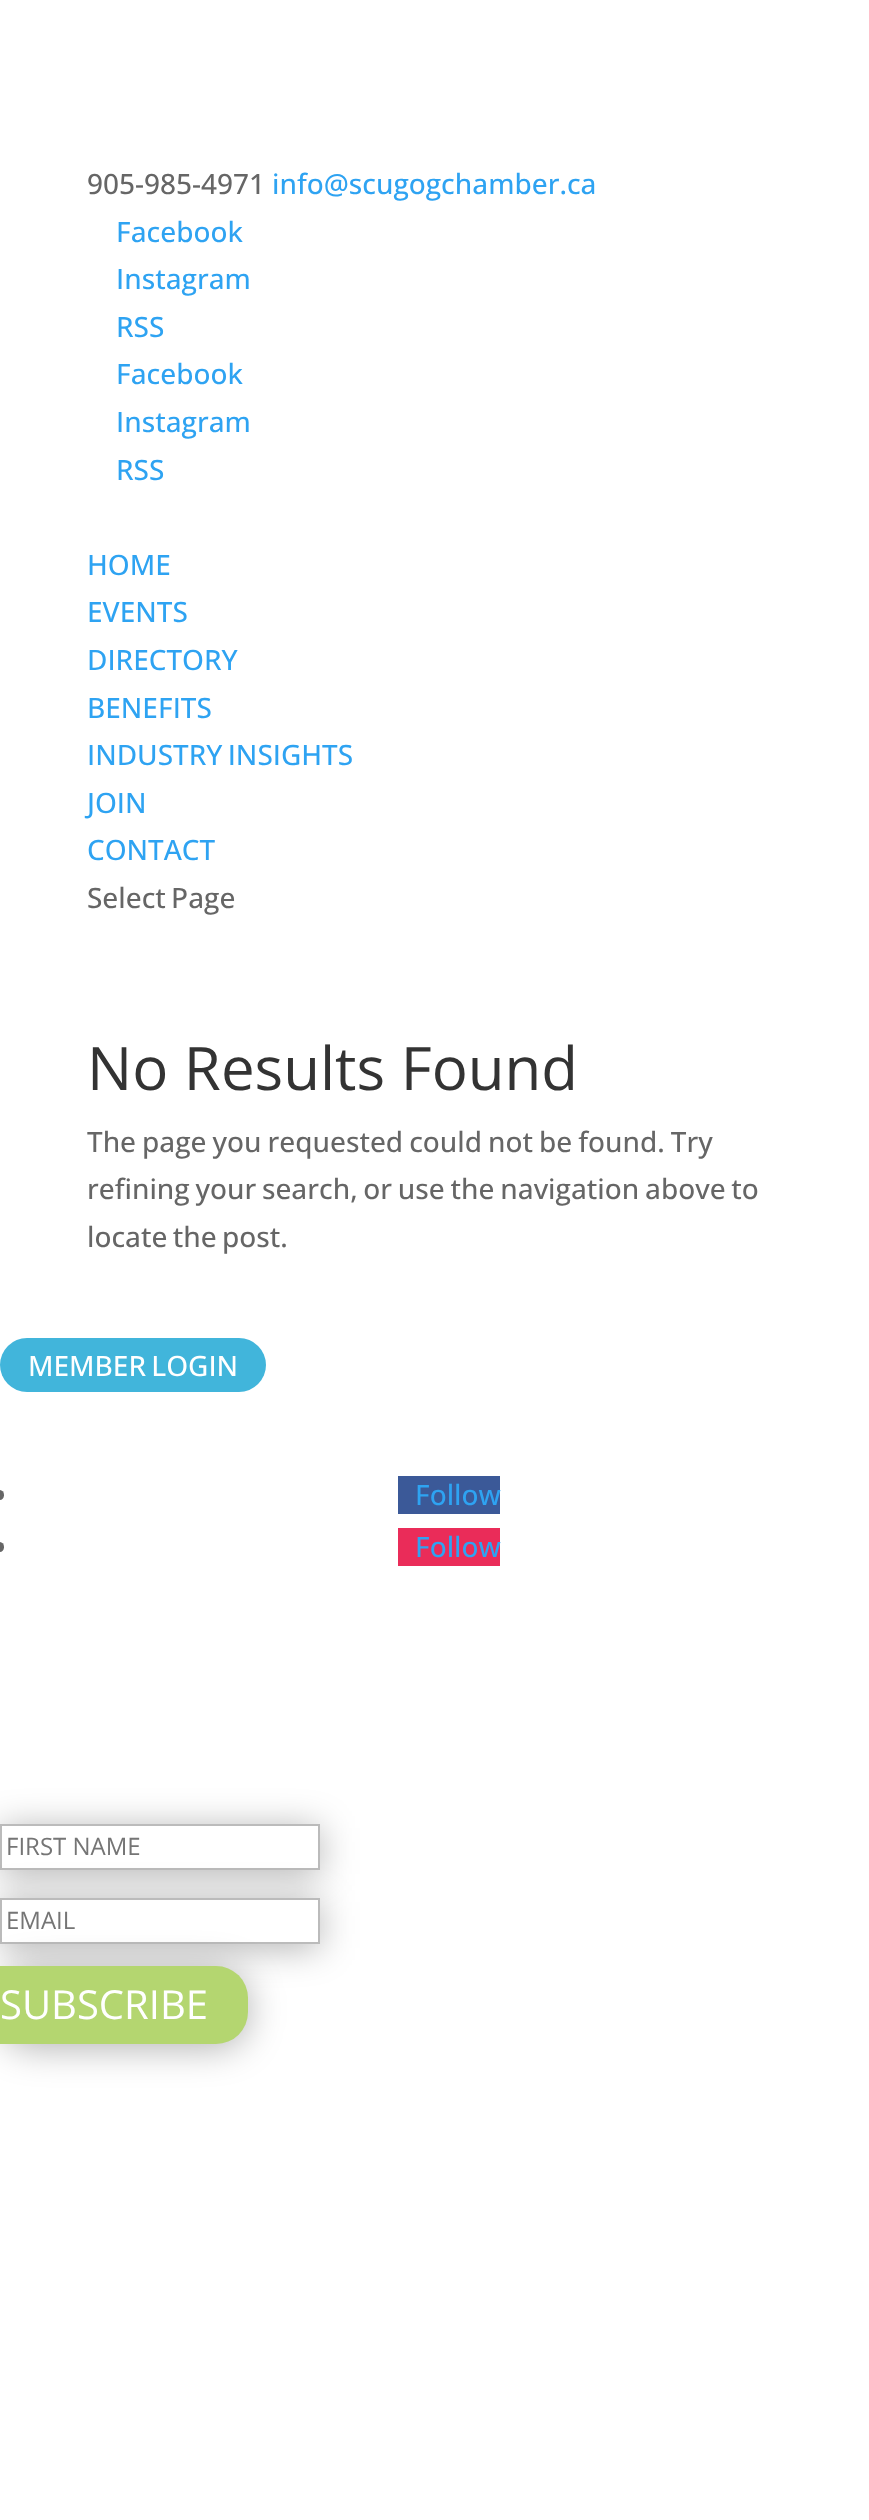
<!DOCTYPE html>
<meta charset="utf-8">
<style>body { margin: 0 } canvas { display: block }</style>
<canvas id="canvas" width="869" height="2520"></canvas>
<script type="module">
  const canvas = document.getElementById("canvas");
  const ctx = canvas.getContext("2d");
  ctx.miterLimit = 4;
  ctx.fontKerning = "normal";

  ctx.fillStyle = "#ffffff";
  ctx.fillRect(0, 0, 869, 2520);
  ctx.font = "500 28px Open Sans";
  ctx.fillStyle = "#666666";
  ctx.fillText("905-985-4971", 87, 194);
  ctx.fillStyle = "#2ea3f2";
  ctx.fillText("info@scugogchamber.ca", 272, 194);
  ctx.fillText("Facebook", 116, 242);
  ctx.fillText("Instagram", 116, 289);
  ctx.fillText("RSS", 116, 337);
  ctx.fillText("Facebook", 116, 384);
  ctx.fillText("Instagram", 116, 432);
  ctx.fillText("RSS", 116, 480);
  ctx.fillText("HOME", 87, 575);
  ctx.fillText("EVENTS", 87, 622);
  ctx.fillText("DIRECTORY", 87, 670);
  ctx.fillText("BENEFITS", 87, 718);
  ctx.wordSpacing = "-2px";
  ctx.fillText("INDUSTRY INSIGHTS", 87, 765);
  ctx.wordSpacing = "0px";
  ctx.fillText("JOIN", 87, 813);
  ctx.fillText("CONTACT", 87, 860);
  ctx.wordSpacing = "-2px";
  ctx.fillStyle = "#666666";
  ctx.fillText("Select Page", 87, 908);
  ctx.wordSpacing = "0px";
  ctx.font = "60px Open Sans";
  ctx.fillStyle = "#333333";
  ctx.fillText("No Results Found", 87, 1090);
  ctx.wordSpacing = "-1.25px";
  ctx.font = "500 28px Open Sans";
  ctx.fillStyle = "#666666";
  ctx.fillText("The page you requested could not be found. Try", 87, 1152);
  ctx.wordSpacing = "-1.5px";
  ctx.fillText("refining your search, or use the navigation above to", 87, 1199);
  ctx.wordSpacing = "-2px";
  ctx.fillText("locate the post.", 87, 1247);
  ctx.fillStyle = "#41b5db";
  ctx.beginPath();
  ctx.roundRect(0, 1338, 266, 54, 27);
  ctx.fill();
  ctx.fillStyle = "#ffffff";
  ctx.fillText("MEMBER LOGIN", 28, 1376);
  ctx.fillStyle = "#666666";
  ctx.beginPath();
  ctx.roundRect(-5, 1490, 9, 10, 5);
  ctx.fill();
  ctx.fillStyle = "#3b5998";
  ctx.fillRect(398, 1476, 102, 38);
  ctx.wordSpacing = "0px";
  ctx.fillStyle = "#2ea3f2";
  ctx.fillText("Follow", 415, 1505);
  ctx.fillStyle = "#666666";
  ctx.beginPath();
  ctx.roundRect(-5, 1542, 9, 10, 5);
  ctx.fill();
  ctx.fillStyle = "#ea2c59";
  ctx.fillRect(398, 1528, 102, 38);
  ctx.fillStyle = "#2ea3f2";
  ctx.fillText("Follow", 415, 1557);
  ctx.save();
  ctx.beginPath();
  ctx.moveTo(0, 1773);
  ctx.lineTo(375, 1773);
  ctx.lineTo(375, 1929);
  ctx.lineTo(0, 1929);
  ctx.closePath();
  ctx.moveTo(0, 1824);
  ctx.lineTo(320, 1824);
  ctx.lineTo(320, 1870);
  ctx.lineTo(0, 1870);
  ctx.closePath();
  ctx.clip("evenodd");
  ctx.fillStyle = "rgba(0, 0, 0, 0.3)";
  ctx.filter = "blur(18px)";
  ctx.beginPath();
  ctx.rect(0, 1828, 320, 46);
  ctx.fill();
  ctx.filter = "none";
  ctx.restore();
  ctx.strokeStyle = "#bbbbbb";
  ctx.lineWidth = 2;
  ctx.strokeRect(1, 1825, 318, 44);
  ctx.font = "24px Open Sans";
  ctx.fillStyle = "#757575";
  ctx.fillText("FIRST NAME", 6, 1855);
  ctx.fillStyle = "rgba(0, 0, 0, 0.3)";
  ctx.filter = "blur(18px)";
  ctx.beginPath();
  ctx.rect(0, 1902, 320, 46);
  ctx.fill();
  ctx.filter = "none";
  ctx.fillStyle = "#ffffff";
  ctx.beginPath();
  ctx.rect(1, 1899, 318, 44);
  ctx.fill();
  ctx.stroke();
  ctx.fillStyle = "#757575";
  ctx.fillText("EMAIL", 6, 1929);
  ctx.fillStyle = "rgba(0, 0, 0, 0.3)";
  ctx.filter = "blur(18px)";
  ctx.beginPath();
  ctx.roundRect(0, 1970, 248, 78, 32);
  ctx.fill();
  ctx.filter = "none";
  ctx.fillStyle = "#b4d670";
  ctx.beginPath();
  ctx.roundRect(0, 1966, 248, 78, [0, 32, 32, 0]);
  ctx.fill();
  ctx.font = "40px Open Sans";
  ctx.fillStyle = "#ffffff";
  ctx.fillText("SUBSCRIBE", 0, 2019);
</script>
